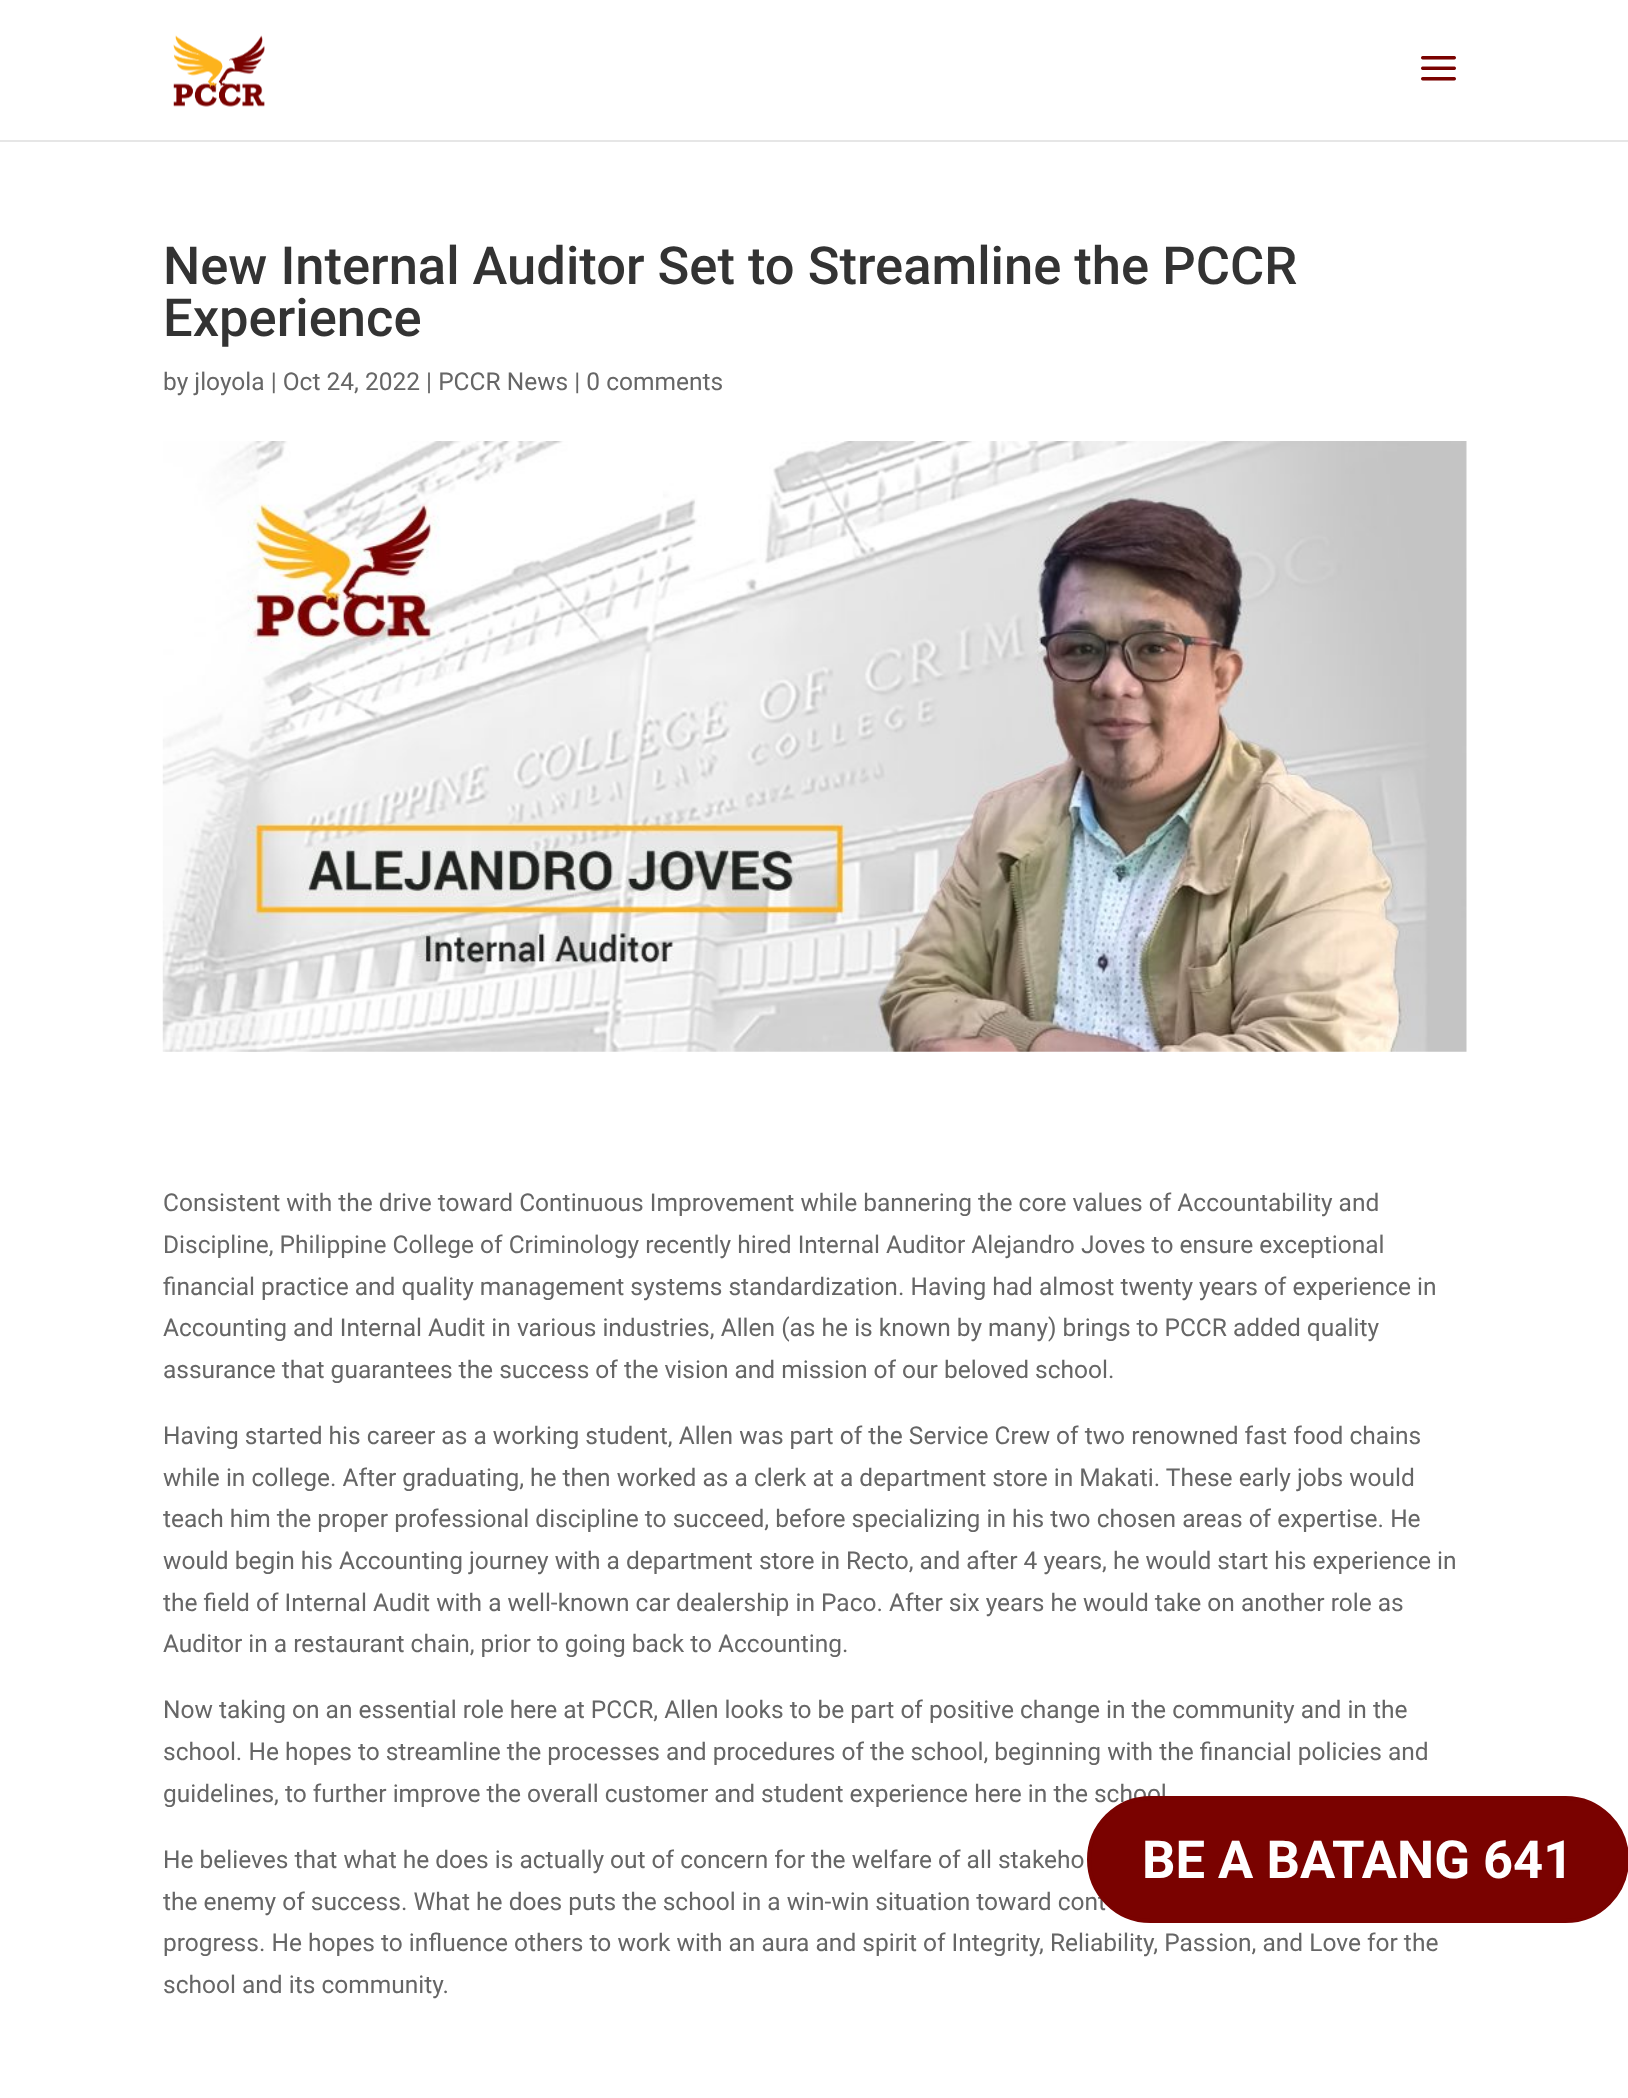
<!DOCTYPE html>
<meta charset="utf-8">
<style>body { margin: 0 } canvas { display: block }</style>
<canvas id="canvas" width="1628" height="2098"></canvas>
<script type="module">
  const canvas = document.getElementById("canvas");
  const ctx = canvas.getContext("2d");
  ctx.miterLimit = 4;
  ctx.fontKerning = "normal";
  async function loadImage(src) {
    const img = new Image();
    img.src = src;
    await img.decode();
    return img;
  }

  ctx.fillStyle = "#ffffff";
  ctx.fillRect(0, 0, 1628, 2098);
  ctx.fillStyle = "#e6e6e6";
  ctx.fillRect(0, 140, 1628, 2);
  ctx.drawImage(await loadImage("img1.png"), 173, 35, 92, 72);
  ctx.drawImage(await loadImage("img2.png"), 1421, 56, 35, 25);
  ctx.font = "500 52.5px Roboto";
  ctx.fillStyle = "#333333";
  ctx.fillText("New Internal Auditor Set to Streamline the PCCR", 163, 284);
  ctx.fillText("Experience", 163, 336);
  ctx.font = "24.5px Roboto";
  ctx.fillStyle = "#666666";
  ctx.fillText("by jloyola | Oct 24, 2022 | PCCR News | 0 comments", 163, 390);
  ctx.drawImage(await loadImage("img3.png"), 162, 441, 1305, 611);
  ctx.fillText("Consistent with the drive toward Continuous Improvement while bannering the core values of Accountability and", 163, 1211);
  ctx.fillText("Discipline, Philippine College of Criminology recently hired Internal Auditor Alejandro Joves to ensure exceptional", 163, 1253);
  ctx.fillText("financial practice and quality management systems standardization. Having had almost twenty years of experience in", 163, 1295);
  ctx.fillText("Accounting and Internal Audit in various industries, Allen (as he is known by many) brings to PCCR added quality", 163, 1336);
  ctx.fillText("assurance that guarantees the success of the vision and mission of our beloved school.", 163, 1378);
  ctx.fillText("Having started his career as a working student, Allen was part of the Service Crew of two renowned fast food chains", 163, 1444);
  ctx.fillText("while in college. After graduating, he then worked as a clerk at a department store in Makati. These early jobs would", 163, 1486);
  ctx.fillText("teach him the proper professional discipline to succeed, before specializing in his two chosen areas of expertise. He", 163, 1527);
  ctx.fillText("would begin his Accounting journey with a department store in Recto, and after 4 years, he would start his experience in", 163, 1569);
  ctx.fillText("the field of Internal Audit with a well-known car dealership in Paco. After six years he would take on another role as", 163, 1611);
  ctx.fillText("Auditor in a restaurant chain, prior to going back to Accounting.", 163, 1652);
  ctx.fillText("Now taking on an essential role here at PCCR, Allen looks to be part of positive change in the community and in the", 163, 1718);
  ctx.fillText("school. He hopes to streamline the processes and procedures of the school, beginning with the financial policies and", 163, 1760);
  ctx.fillText("guidelines, to further improve the overall customer and student experience here in the school", 163, 1802);
  ctx.fillText("He believes that what he does is actually out of concern for the welfare of all stakeho", 163, 1868);
  ctx.fillText("the enemy of success. What he does puts the school in a win-win situation toward cont", 163, 1910);
  ctx.fillText("progress. He hopes to influence others to work with an aura and spirit of Integrity, Reliability, Passion, and Love for the", 163, 1951);
  ctx.fillText("school and its community.", 163, 1993);
  ctx.fillStyle = "#7a0200";
  ctx.beginPath();
  ctx.roundRect(1089, 1798, 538, 123, 61.5);
  ctx.fill();
  ctx.strokeStyle = "#7a0200";
  ctx.lineWidth = 4;
  ctx.stroke();
  ctx.font = "bold 52.5px Roboto";
  ctx.fillStyle = "#ffffff";
  ctx.fillText("BE A BATANG 641", 1142, 1878);
</script>
